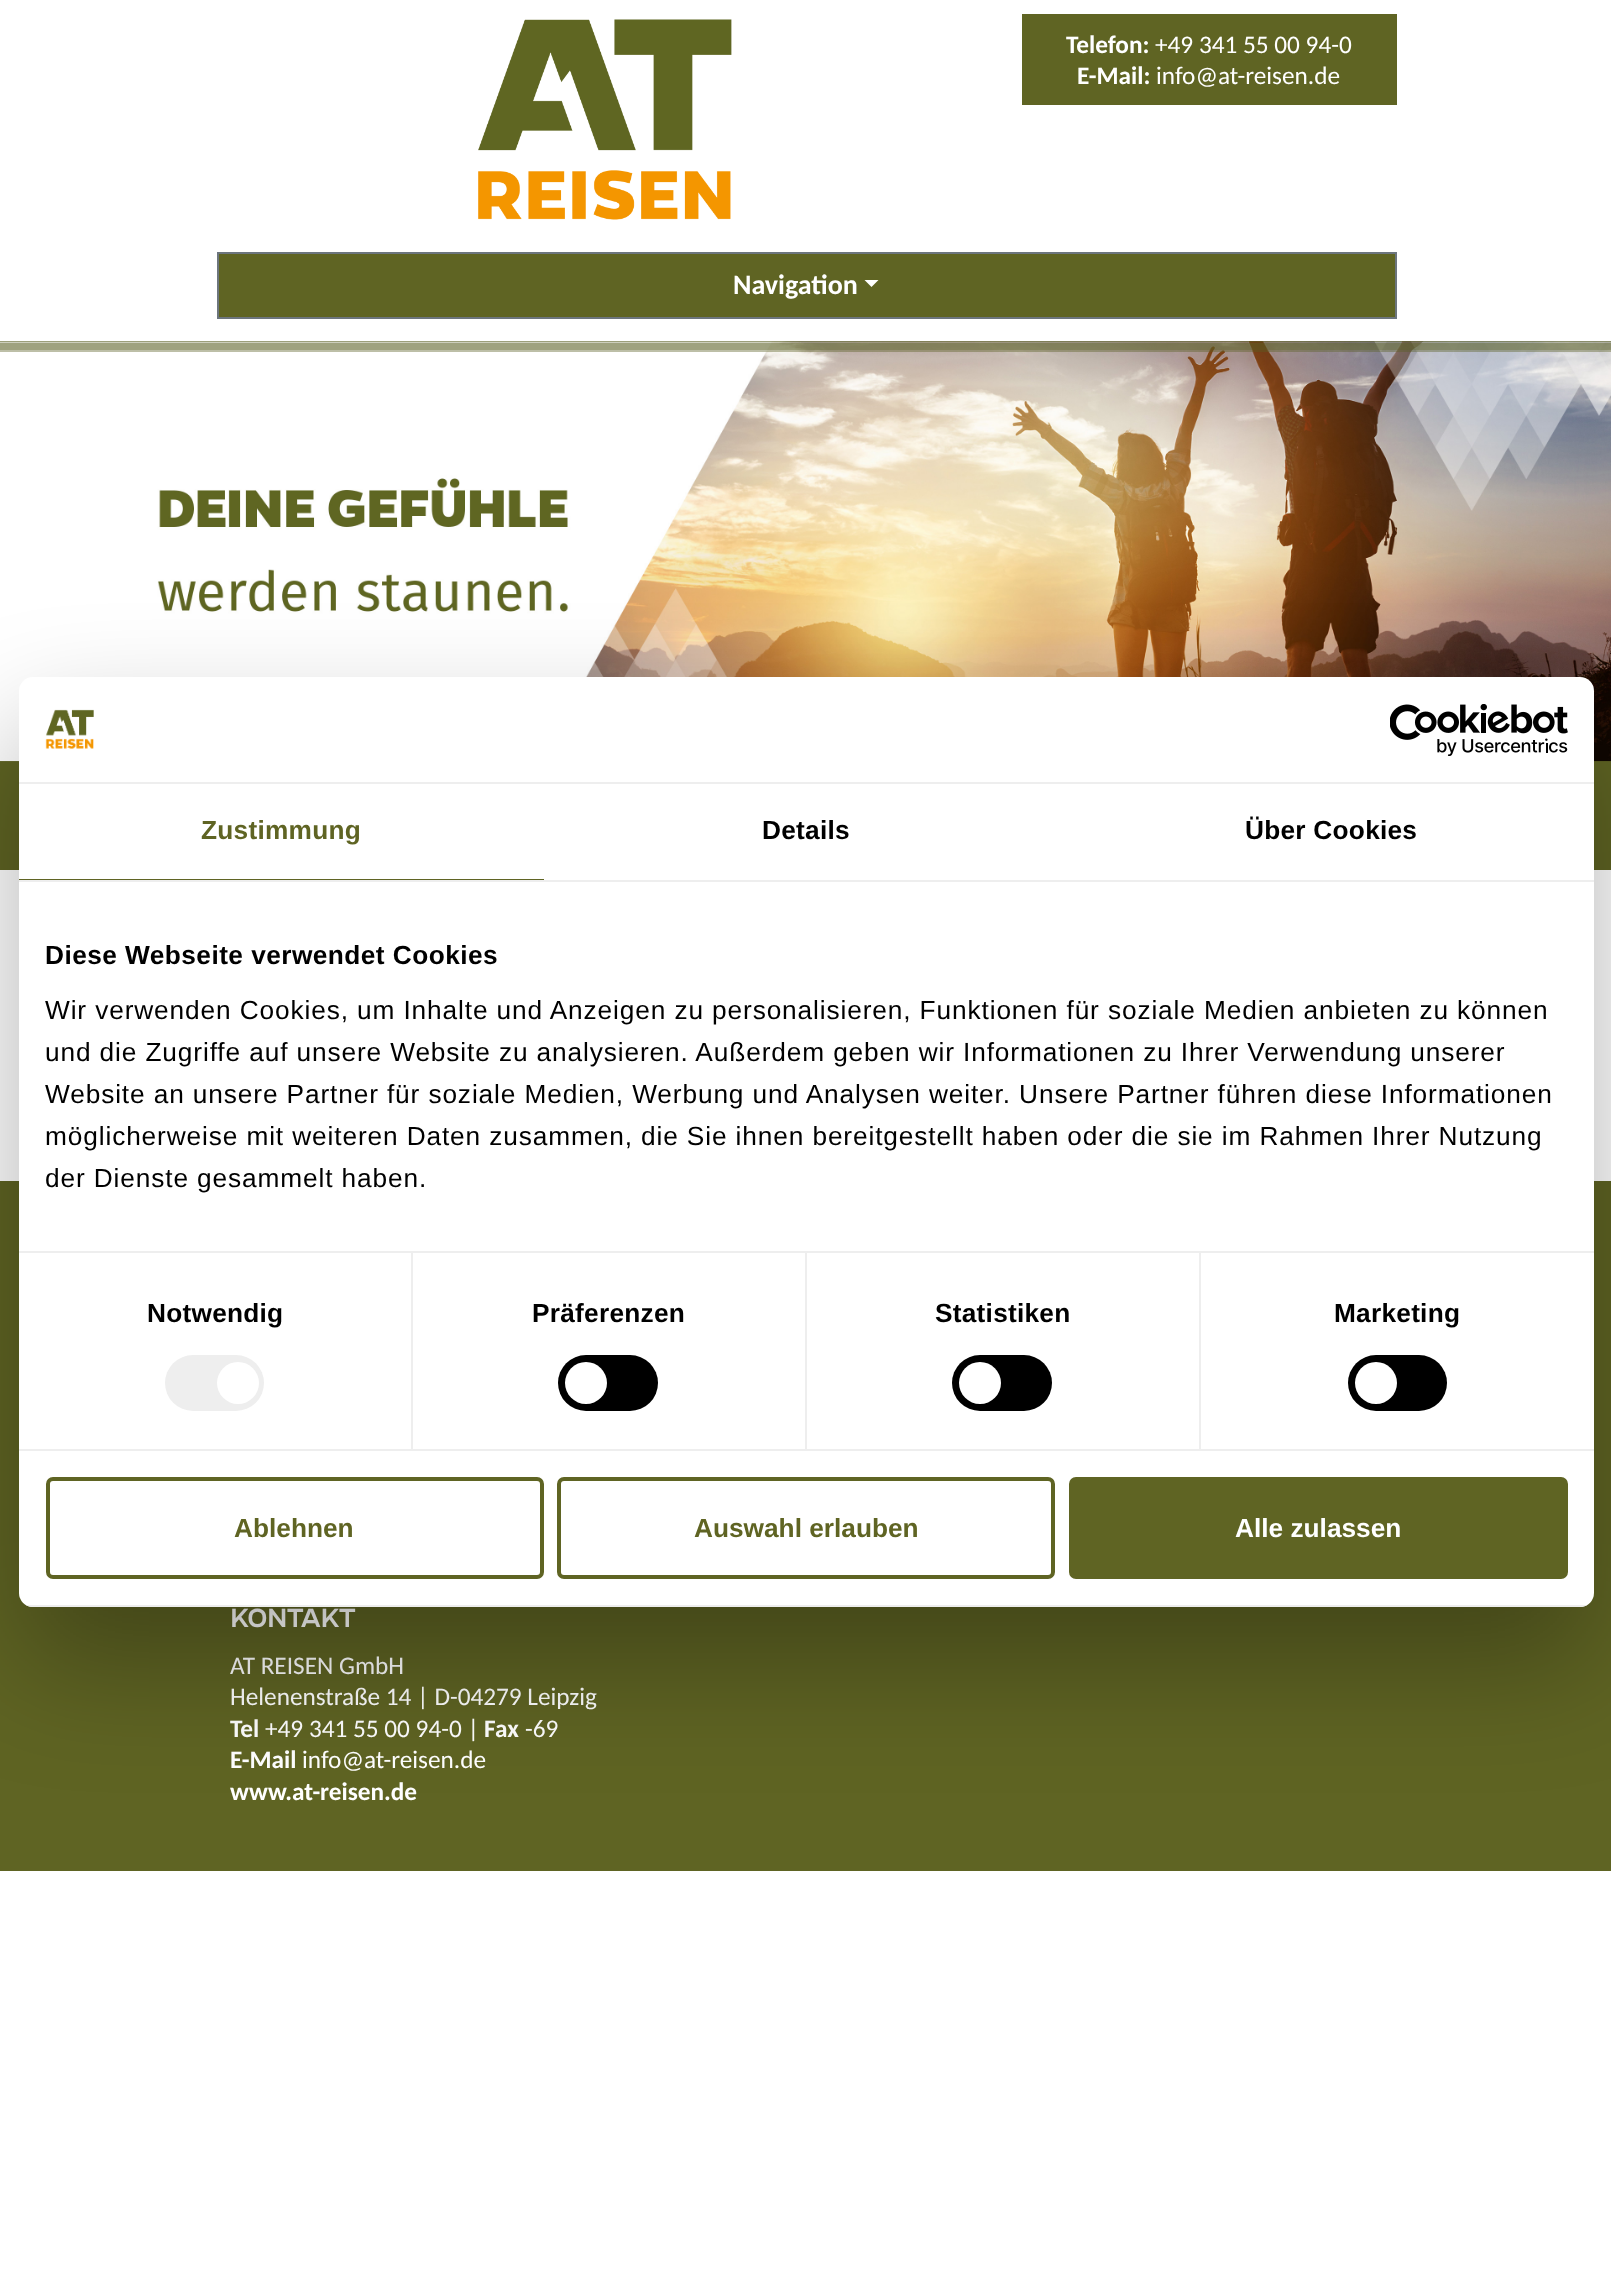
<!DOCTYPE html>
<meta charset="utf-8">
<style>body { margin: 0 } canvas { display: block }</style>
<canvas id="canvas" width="1611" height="2283"></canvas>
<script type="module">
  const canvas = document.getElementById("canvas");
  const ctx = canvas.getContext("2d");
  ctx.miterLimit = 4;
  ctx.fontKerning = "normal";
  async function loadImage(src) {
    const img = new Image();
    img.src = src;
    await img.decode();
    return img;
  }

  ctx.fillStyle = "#ffffff";
  ctx.fillRect(0, 0, 1611, 2283);
  ctx.drawImage(await loadImage("img1.png"), 478, 19, 254, 201);
  ctx.fillStyle = "#5f6423";
  ctx.fillRect(1022, 14, 375, 91);
  ctx.font = "bold 25.25px Carlito";
  ctx.fillStyle = "#ffffff";
  ctx.fillText("Telefon:", 1066, 53);
  ctx.font = "25.25px Carlito";
  ctx.fillText("+49 341 55 00 94-0", 1155, 53);
  ctx.font = "bold 25.25px Carlito";
  ctx.fillText("E-Mail:", 1077, 84);
  ctx.font = "25.25px Carlito";
  ctx.fillText("info@at-reisen.de", 1156, 84);
  ctx.fillStyle = "#5f6423";
  ctx.beginPath();
  ctx.rect(218, 253, 1178, 65);
  ctx.fill();
  ctx.strokeStyle = "#6c757d";
  ctx.lineWidth = 2;
  ctx.stroke();
  ctx.font = "bold 28px Carlito";
  ctx.fillStyle = "#ffffff";
  ctx.fillText("Navigation", 733, 294);
  ctx.beginPath();
  ctx.moveTo(864.5, 280);
  ctx.lineTo(878.5, 280);
  ctx.lineTo(871.5, 287);
  ctx.closePath();
  ctx.fill();
  ctx.fillStyle = "#5f6423";
  ctx.fillRect(0, 341, 1611, 1);
  ctx.fillRect(0, 761, 1611, 109);
  ctx.drawImage(await loadImage("img2.png"), 0, 341, 1611, 421);
  ctx.fillStyle = "rgba(90, 95, 36, 0.4)";
  ctx.fillRect(0, 343, 1611, 9);
  ctx.fillStyle = "rgba(90, 95, 36, 0.3)";
  ctx.fillRect(0, 341, 1611, 9);
  ctx.fillStyle = "#5f6423";
  ctx.fillRect(0, 1181, 1611, 690);
  ctx.font = "500 29.75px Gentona";
  ctx.fillStyle = "#ffffff";
  ctx.fillText("KONTAKT", 230, 1627);
  ctx.font = "25.25px Carlito";
  ctx.fillText("AT REISEN GmbH", 230, 1674);
  ctx.fillText("Helenenstraße 14 | D-04279 Leipzig", 230, 1705);
  ctx.font = "bold 25.25px Carlito";
  ctx.fillText("Tel", 230, 1737);
  ctx.font = "25.25px Carlito";
  ctx.fillText("+49 341 55 00 94-0 |", 265, 1737);
  ctx.font = "bold 25.25px Carlito";
  ctx.fillText("Fax", 484, 1737);
  ctx.font = "25.25px Carlito";
  ctx.fillText("-69", 525, 1737);
  ctx.font = "bold 25.25px Carlito";
  ctx.fillText("E-Mail", 230, 1768);
  ctx.font = "25.25px Carlito";
  ctx.fillText("info@at-reisen.de", 302, 1768);
  ctx.font = "bold 25.25px Carlito";
  ctx.fillText("www.at-reisen.de", 230, 1800);
  ctx.fillStyle = "rgba(0, 0, 0, 0.3)";
  ctx.filter = "blur(59.5px)";
  ctx.beginPath();
  ctx.roundRect(19, 733, 1575, 930, 14);
  ctx.fill();
  ctx.filter = "none";
  ctx.fillStyle = "#ffffff";
  ctx.beginPath();
  ctx.roundRect(19, 677, 1575, 930, 14);
  ctx.fill();
  ctx.fillStyle = "#eeeeee";
  ctx.fillRect(19, 782, 1575, 2);
  ctx.drawImage(await loadImage("img3.png"), 45, 709, 49, 40);
  ctx.drawImage(await loadImage("img4.png"), 1390, 704, 178, 52);
  ctx.fillRect(19, 880, 1575, 2);
  ctx.fillStyle = "#5f6423";
  ctx.fillRect(19, 879, 525, 1);
  ctx.letterSpacing = "0.25px";
  ctx.font = "bold 26.25px Liberation Sans";
  ctx.fillText("Zustimmung", 201, 839);
  ctx.fillStyle = "#000000";
  ctx.fillText("Details", 762, 839);
  ctx.fillText("Über Cookies", 1245, 839);
  ctx.fillStyle = "#eeeeee";
  ctx.fillRect(19, 1251, 1575, 2);
  ctx.letterSpacing = "0.45px";
  ctx.fillStyle = "#000000";
  ctx.fillText("Diese Webseite verwendet Cookies", 45, 964);
  ctx.letterSpacing = "0.88px";
  ctx.font = "26.25px Liberation Sans";
  ctx.fillText("Wir verwenden Cookies, um Inhalte und Anzeigen zu personalisieren, Funktionen für soziale Medien anbieten zu können", 45, 1019);
  ctx.fillText("und die Zugriffe auf unsere Website zu analysieren. Außerdem geben wir Informationen zu Ihrer Verwendung unserer", 45, 1061);
  ctx.fillText("Website an unsere Partner für soziale Medien, Werbung und Analysen weiter. Unsere Partner führen diese Informationen", 45, 1103);
  ctx.fillText("möglicherweise mit weiteren Daten zusammen, die Sie ihnen bereitgestellt haben oder die sie im Rahmen Ihrer Nutzung", 45, 1145);
  ctx.fillText("der Dienste gesammelt haben.", 45, 1187);
  ctx.fillStyle = "#eeeeee";
  ctx.fillRect(19, 1449, 1575, 2);
  ctx.fillRect(411, 1253, 2, 196);
  ctx.letterSpacing = "0.25px";
  ctx.font = "bold 26.25px Liberation Sans";
  ctx.fillStyle = "#000000";
  ctx.fillText("Notwendig", 147, 1322);
  ctx.fillStyle = "#eeeeee";
  ctx.beginPath();
  ctx.roundRect(165, 1355, 99, 56, 28);
  ctx.fill();
  ctx.fillStyle = "#ffffff";
  ctx.beginPath();
  ctx.arc(238, 1383, 21, 0, Math.PI * 2);
  ctx.fill();
  ctx.fillStyle = "#eeeeee";
  ctx.fillRect(805, 1253, 2, 196);
  ctx.fillStyle = "#000000";
  ctx.fillText("Präferenzen", 532, 1322);
  ctx.beginPath();
  ctx.roundRect(558, 1355, 100, 56, 28);
  ctx.fill();
  ctx.fillStyle = "#ffffff";
  ctx.beginPath();
  ctx.arc(586, 1383, 21, 0, Math.PI * 2);
  ctx.fill();
  ctx.fillStyle = "#eeeeee";
  ctx.fillRect(1199, 1253, 2, 196);
  ctx.fillStyle = "#000000";
  ctx.fillText("Statistiken", 935, 1322);
  ctx.beginPath();
  ctx.roundRect(952, 1355, 100, 56, 28);
  ctx.fill();
  ctx.fillStyle = "#ffffff";
  ctx.beginPath();
  ctx.arc(980, 1383, 21, 0, Math.PI * 2);
  ctx.fill();
  ctx.fillStyle = "#000000";
  ctx.fillText("Marketing", 1334, 1322);
  ctx.beginPath();
  ctx.roundRect(1348, 1355, 99, 56, 28);
  ctx.fill();
  ctx.fillStyle = "#ffffff";
  ctx.beginPath();
  ctx.arc(1376, 1383, 21, 0, Math.PI * 2);
  ctx.fill();
  ctx.save();
  ctx.beginPath();
  ctx.roundRect(19, 677, 1575, 930, 14);
  ctx.clip();
  ctx.fillStyle = "#eeeeee";
  ctx.fillRect(19, 1605, 1575, 2);
  ctx.restore();
  ctx.beginPath();
  ctx.roundRect(48, 1479, 494, 98, 5);
  ctx.strokeStyle = "#5f6423";
  ctx.lineWidth = 4;
  ctx.stroke();
  ctx.letterSpacing = "0px";
  ctx.fillStyle = "#5f6423";
  ctx.fillText("Ablehnen", 234, 1537);
  ctx.beginPath();
  ctx.roundRect(559, 1479, 494, 98, 5);
  ctx.stroke();
  ctx.fillText("Auswahl erlauben", 694, 1537);
  ctx.beginPath();
  ctx.roundRect(1071, 1479, 495, 98, 5);
  ctx.fill();
  ctx.stroke();
  ctx.fillStyle = "#ffffff";
  ctx.fillText("Alle zulassen", 1235, 1537);
</script>
